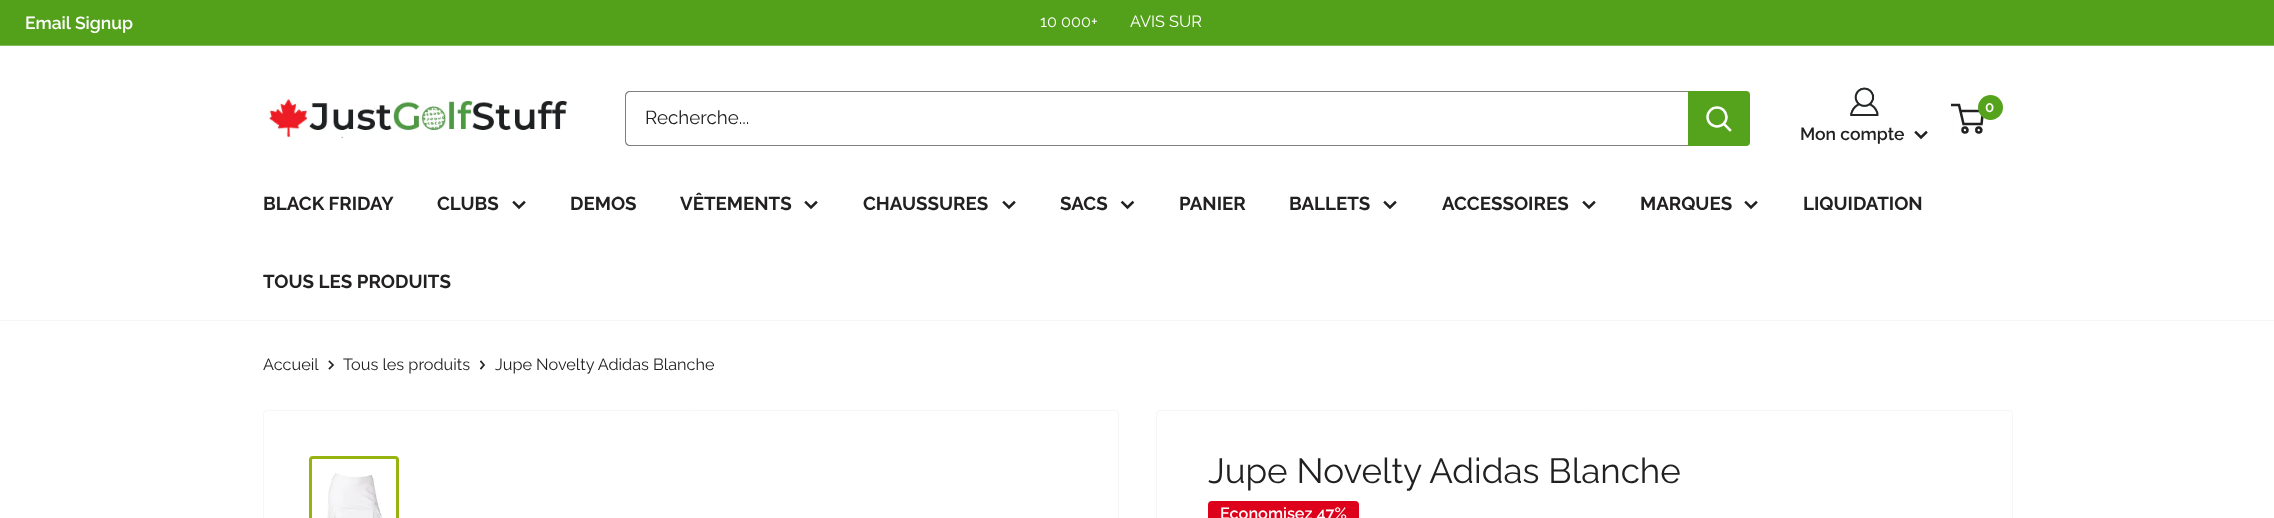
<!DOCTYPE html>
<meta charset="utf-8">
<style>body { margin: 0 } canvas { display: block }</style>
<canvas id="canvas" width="2274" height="518"></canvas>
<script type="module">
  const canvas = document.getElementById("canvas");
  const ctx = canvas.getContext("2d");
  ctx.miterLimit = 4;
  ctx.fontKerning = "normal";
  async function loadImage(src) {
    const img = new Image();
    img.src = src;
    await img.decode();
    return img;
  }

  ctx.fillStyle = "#ffffff";
  ctx.fillRect(0, 0, 2274, 518);
  ctx.fillStyle = "#53a11b";
  ctx.fillRect(0, 0, 2274, 45);
  ctx.fillStyle = "#84bb5d";
  ctx.fillRect(0, 45, 2274, 1);
  ctx.font = "600 17.5px Raleway";
  ctx.fillStyle = "#ffffff";
  ctx.fillText("Email Signup", 25, 29);
  ctx.font = "16.25px Raleway";
  ctx.fillText("10 000+", 1040, 27);
  ctx.fillText("AVIS SUR", 1130, 27);
  ctx.drawImage(await loadImage("img1.png"), 269, 98, 300, 40);
  ctx.fillStyle = "#fcfcfc";
  ctx.beginPath();
  ctx.moveTo(630, 92);
  ctx.lineTo(1749, 92);
  ctx.bezierCurveTo(1748, 91, 1747, 91, 1746, 91);
  ctx.lineTo(629, 91);
  ctx.bezierCurveTo(627, 91, 625, 93, 625, 95);
  ctx.lineTo(625, 142);
  ctx.bezierCurveTo(625, 143, 625, 144, 626, 145);
  ctx.lineTo(626, 104);
  ctx.bezierCurveTo(626, 102, 624, 92, 630, 92);
  ctx.closePath();
  ctx.fill();
  ctx.fillStyle = "#808080";
  ctx.beginPath();
  ctx.moveTo(630, 91);
  ctx.lineTo(1688, 91);
  ctx.lineTo(1688, 146);
  ctx.lineTo(630, 146);
  ctx.bezierCurveTo(627, 146, 625, 144, 625, 141);
  ctx.lineTo(625, 96);
  ctx.bezierCurveTo(625, 93, 627, 91, 630, 91);
  ctx.closePath();
  ctx.moveTo(630, 92);
  ctx.lineTo(1688, 92);
  ctx.lineTo(1688, 145);
  ctx.lineTo(630, 145);
  ctx.bezierCurveTo(628, 145, 626, 143, 626, 141);
  ctx.lineTo(626, 96);
  ctx.bezierCurveTo(626, 94, 628, 92, 630, 92);
  ctx.closePath();
  ctx.fill("evenodd");
  ctx.font = "18.75px Raleway";
  ctx.fillStyle = "#222021";
  ctx.fillText("Recherche...", 645, 124);
  ctx.fillStyle = "#55a21d";
  ctx.beginPath();
  ctx.roundRect(1688, 91, 62, 55, [0, 4, 4, 0]);
  ctx.fill();
  ctx.beginPath();
  ctx.moveTo(1730, 130);
  ctx.lineTo(1724, 124);
  ctx.strokeStyle = "#ffffff";
  ctx.lineWidth = 2.5;
  ctx.lineCap = "square";
  ctx.stroke();
  ctx.beginPath();
  ctx.arc(1717, 117, 9.5, 0, Math.PI * 2);
  ctx.stroke();
  ctx.beginPath();
  ctx.arc(1965, 130, 2.5, 0, Math.PI * 2);
  ctx.strokeStyle = "#222021";
  ctx.stroke();
  ctx.beginPath();
  ctx.arc(1978.8, 130, 2.5, 0, Math.PI * 2);
  ctx.stroke();
  ctx.fillStyle = "#fcfcfc";
  ctx.fillRect(1953, 98, 1, 42);
  ctx.beginPath();
  ctx.moveTo(1960.5, 111);
  ctx.lineTo(1983, 111);
  ctx.lineTo(1981.5, 124);
  ctx.lineTo(1963.5, 124);
  ctx.lineTo(1959, 105);
  ctx.lineTo(1951, 105);
  ctx.lineCap = "butt";
  ctx.stroke();
  ctx.fillStyle = "#55a21d";
  ctx.beginPath();
  ctx.arc(1990.5, 107.5, 12.5, 0, Math.PI * 2);
  ctx.fill();
  ctx.font = "600 15px Raleway";
  ctx.fillStyle = "#ffffff";
  ctx.fillText("0", 1985, 112);
  ctx.drawImage(await loadImage("img2.png"), 1850, 87, 29, 29);
  ctx.font = "600 17.5px Raleway";
  ctx.fillStyle = "#222021";
  ctx.fillText("Mon compte", 1800, 140);
  ctx.beginPath();
  ctx.moveTo(1926, 132.5);
  ctx.lineTo(1921, 137.5);
  ctx.lineTo(1916, 132.5);
  ctx.lineCap = "square";
  ctx.stroke();
  ctx.fillStyle = "#f6f6f6";
  ctx.fillRect(0, 320, 2274, 1);
  ctx.font = "bold 18.75px Raleway";
  ctx.fillStyle = "#222021";
  ctx.fillText("BLACK FRIDAY", 263, 210);
  ctx.fillText("CLUBS", 437, 210);
  ctx.beginPath();
  ctx.moveTo(524, 202.5);
  ctx.lineTo(519, 207.5);
  ctx.lineTo(514, 202.5);
  ctx.stroke();
  ctx.fillText("DEMOS", 570, 210);
  ctx.fillText("VÊTEMENTS", 680, 210);
  ctx.beginPath();
  ctx.moveTo(816, 202.5);
  ctx.lineTo(811, 207.5);
  ctx.lineTo(806, 202.5);
  ctx.stroke();
  ctx.fillText("CHAUSSURES", 863, 210);
  ctx.beginPath();
  ctx.moveTo(1014, 202.5);
  ctx.lineTo(1009, 207.5);
  ctx.lineTo(1004, 202.5);
  ctx.stroke();
  ctx.fillText("SACS", 1060, 210);
  ctx.beginPath();
  ctx.moveTo(1132.5, 202.5);
  ctx.lineTo(1127.5, 207.5);
  ctx.lineTo(1122.5, 202.5);
  ctx.stroke();
  ctx.fillText("PANIER", 1179, 210);
  ctx.fillText("BALLETS", 1289, 210);
  ctx.beginPath();
  ctx.moveTo(1395, 202.5);
  ctx.lineTo(1390, 207.5);
  ctx.lineTo(1385, 202.5);
  ctx.stroke();
  ctx.fillText("ACCESSOIRES", 1442, 210);
  ctx.beginPath();
  ctx.moveTo(1594, 202.5);
  ctx.lineTo(1589, 207.5);
  ctx.lineTo(1584, 202.5);
  ctx.stroke();
  ctx.fillText("MARQUES", 1640, 210);
  ctx.beginPath();
  ctx.moveTo(1756, 202.5);
  ctx.lineTo(1751, 207.5);
  ctx.lineTo(1746, 202.5);
  ctx.stroke();
  ctx.fillText("LIQUIDATION", 1803, 210);
  ctx.fillText("TOUS LES PRODUITS", 263, 288);
  ctx.font = "16.25px Raleway";
  ctx.fillText("Accueil", 263, 370);
  ctx.beginPath();
  ctx.moveTo(329.5, 361.5);
  ctx.lineTo(333, 365);
  ctx.lineTo(329.5, 368.5);
  ctx.lineWidth = 1.7;
  ctx.stroke();
  ctx.fillText("Tous les produits", 343, 370);
  ctx.beginPath();
  ctx.moveTo(481, 361.5);
  ctx.lineTo(484, 365);
  ctx.lineTo(481, 368.5);
  ctx.stroke();
  ctx.fillText("Jupe Novelty Adidas Blanche", 495, 370);
  ctx.beginPath();
  ctx.roundRect(263.5, 410.5, 855, 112, 3.5);
  ctx.strokeStyle = "#f6f6f6";
  ctx.lineWidth = 1;
  ctx.stroke();
  ctx.beginPath();
  ctx.roundRect(310.5, 457.5, 87, 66, 2.5);
  ctx.strokeStyle = "#97b310";
  ctx.lineWidth = 3;
  ctx.stroke();
  ctx.drawImage(await loadImage("img3.png"), 327, 473, 56, 45);
  ctx.beginPath();
  ctx.roundRect(1156.5, 410.5, 856, 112, 3.5);
  ctx.strokeStyle = "#f6f6f6";
  ctx.lineWidth = 1;
  ctx.stroke();
  ctx.font = "35px Raleway";
  ctx.fillText("Jupe Novelty Adidas Blanche", 1208, 483);
  ctx.fillStyle = "#de011c";
  ctx.beginPath();
  ctx.roundRect(1208, 501, 151, 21, 4);
  ctx.fill();
  ctx.font = "600 16.25px Raleway";
  ctx.fillStyle = "#ffffff";
  ctx.fillText("Economisez 47%", 1220, 519);
</script>
